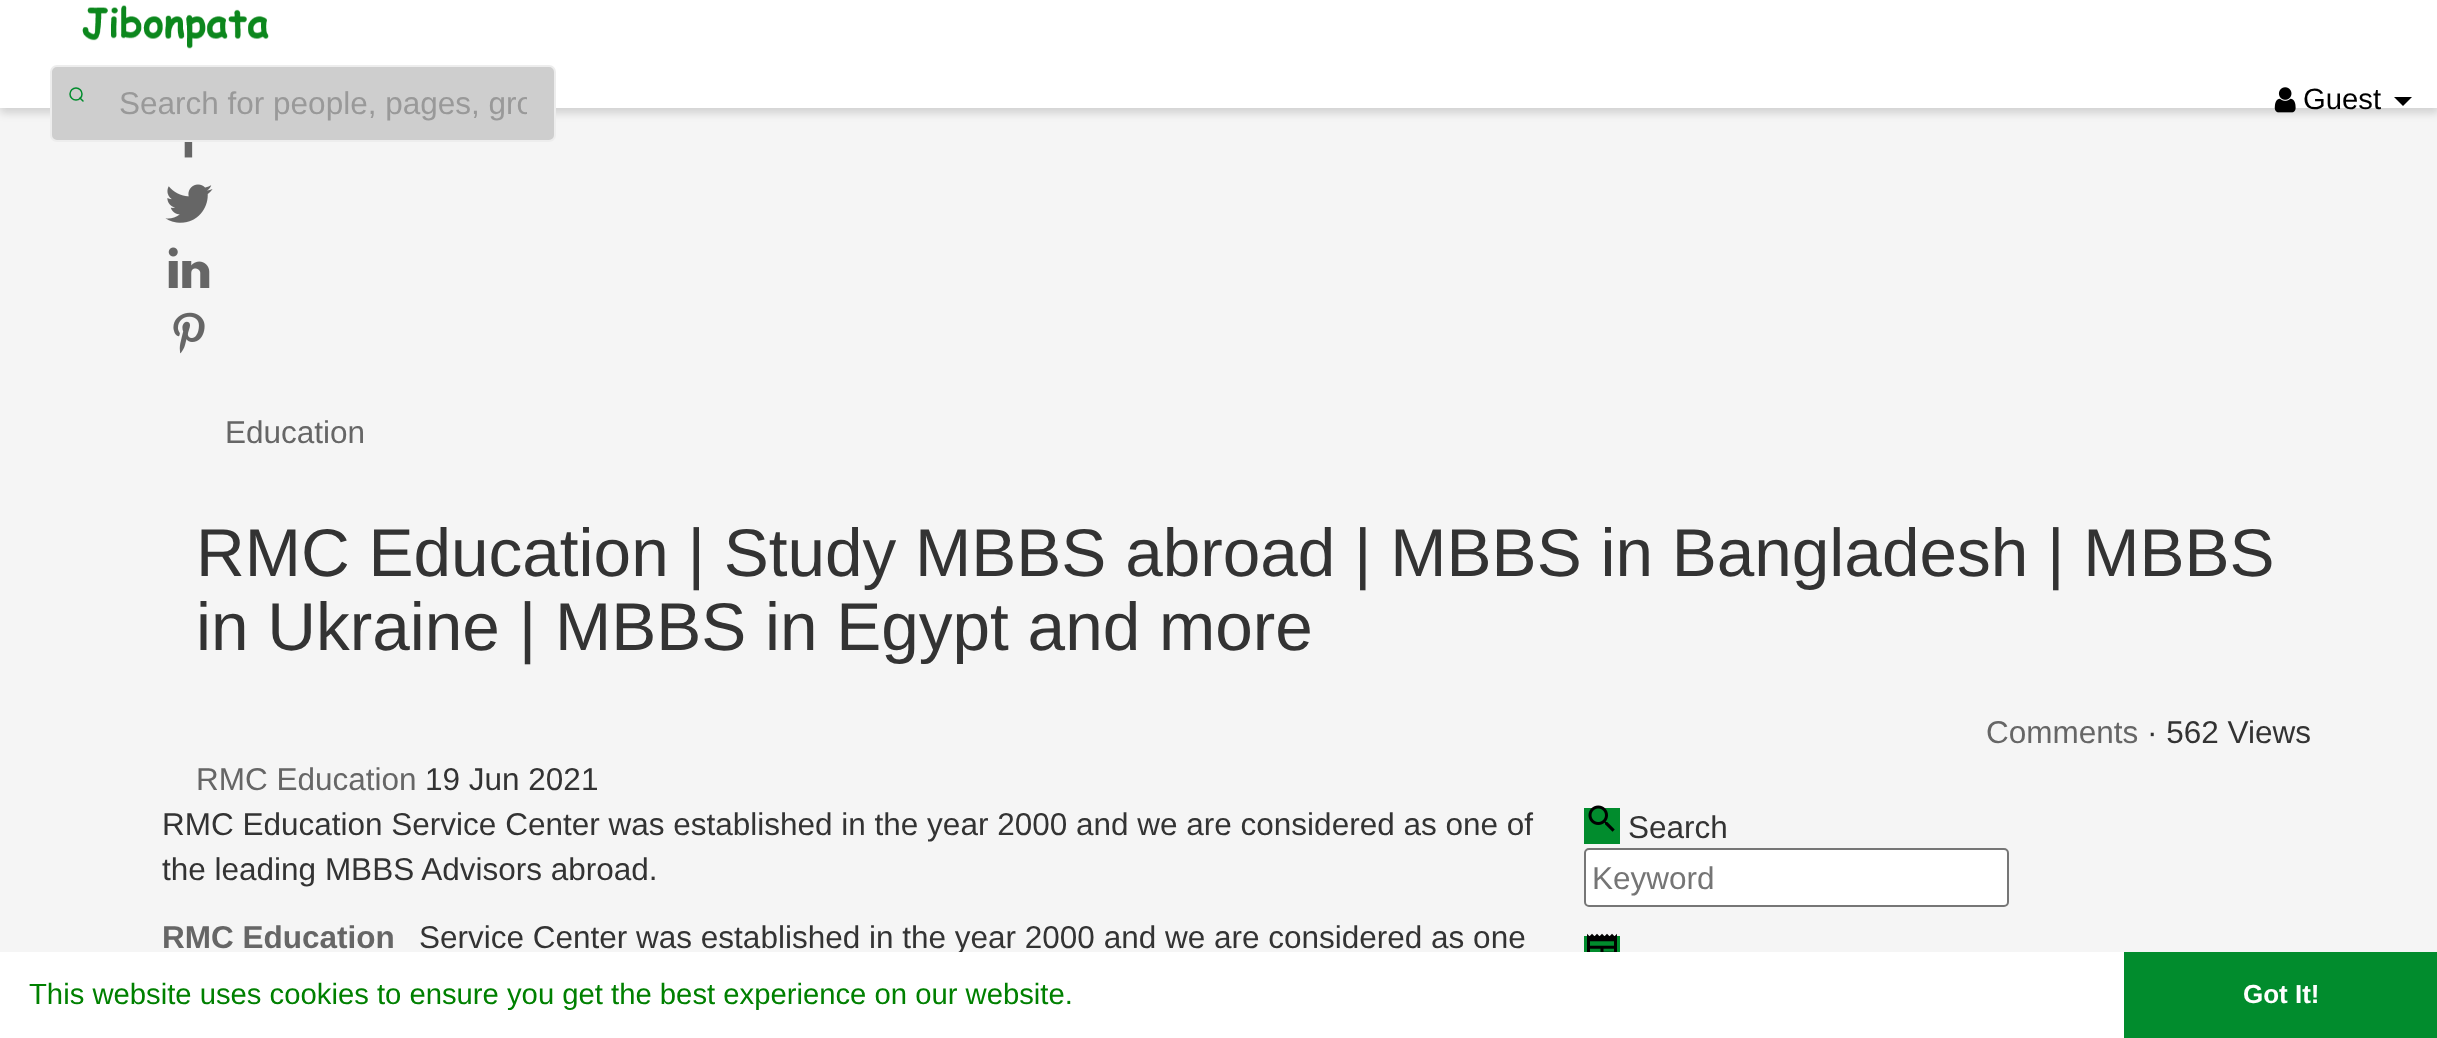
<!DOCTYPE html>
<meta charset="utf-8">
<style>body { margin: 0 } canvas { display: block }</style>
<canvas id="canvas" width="2437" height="1038"></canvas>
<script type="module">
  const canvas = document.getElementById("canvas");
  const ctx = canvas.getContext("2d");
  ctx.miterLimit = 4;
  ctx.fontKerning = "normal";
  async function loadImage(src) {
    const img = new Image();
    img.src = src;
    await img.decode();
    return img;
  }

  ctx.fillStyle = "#f5f5f5";
  ctx.fillRect(0, 0, 2437, 1038);
  ctx.fillStyle = "rgba(0, 0, 0, 0.15)";
  ctx.filter = "blur(4.5px)";
  ctx.beginPath();
  ctx.rect(0, 5, 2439, 108);
  ctx.fill();
  ctx.filter = "none";
  ctx.fillStyle = "#ffffff";
  ctx.fillRect(0, 0, 2437, 108);
  ctx.drawImage(await loadImage("img1.png"), 82, 5, 187, 44);
  ctx.fillStyle = "#cecece";
  ctx.beginPath();
  ctx.roundRect(51, 66, 504, 75, 6);
  ctx.fill();
  ctx.strokeStyle = "#ededed";
  ctx.lineWidth = 2;
  ctx.stroke();
  ctx.beginPath();
  ctx.arc(76, 94, 6, 0, Math.PI * 2);
  ctx.strokeStyle = "#018c2d";
  ctx.lineWidth = 1.5;
  ctx.stroke();
  ctx.beginPath();
  ctx.moveTo(83, 101);
  ctx.lineTo(80, 98);
  ctx.lineCap = "round";
  ctx.lineJoin = "round";
  ctx.stroke();
  ctx.save();
  ctx.beginPath();
  ctx.rect(119, 86, 408, 36);
  ctx.clip();
  ctx.font = "31.5px Liberation Sans";
  ctx.fillStyle = "#999999";
  ctx.fillText("Search for people, pages, gro", 119, 114);
  ctx.restore();
  ctx.drawImage(await loadImage("img2.png"), 2274, 87, 22, 26);
  ctx.font = "29.25px Liberation Sans";
  ctx.fillStyle = "#000000";
  ctx.fillText("Guest", 2303, 109);
  ctx.beginPath();
  ctx.moveTo(2394, 97);
  ctx.lineTo(2412, 97);
  ctx.lineTo(2403, 106);
  ctx.closePath();
  ctx.fill();
  ctx.drawImage(await loadImage("img3.png"), 184, 142, 9, 16);
  ctx.drawImage(await loadImage("img4.png"), 165, 184, 48, 39);
  ctx.drawImage(await loadImage("img5.png"), 168, 247, 42, 41);
  ctx.drawImage(await loadImage("img6.png"), 173, 312, 32, 42);
  ctx.font = "31.5px Liberation Sans";
  ctx.fillStyle = "#666666";
  ctx.fillText("Education", 225, 443);
  ctx.font = "67.5px Liberation Sans";
  ctx.fillStyle = "#333333";
  ctx.fillText("RMC Education | Study MBBS abroad | MBBS in Bangladesh | MBBS", 196, 576);
  ctx.fillText("in Ukraine | MBBS in Egypt and more", 196, 650);
  ctx.font = "31.5px Liberation Sans";
  ctx.fillStyle = "#666666";
  ctx.fillText("Comments", 1986, 743);
  ctx.fillStyle = "#333333";
  ctx.fillText("· 562 Views", 2147, 743);
  ctx.fillStyle = "#666666";
  ctx.fillText("RMC Education", 196, 790);
  ctx.fillStyle = "#333333";
  ctx.fillText("19 Jun 2021", 425, 790);
  ctx.fillText("RMC Education Service Center was established in the year 2000 and we are considered as one of", 162, 835);
  ctx.fillText("the leading MBBS Advisors abroad.", 162, 880);
  ctx.font = "bold 31.5px Liberation Sans";
  ctx.fillStyle = "#666666";
  ctx.fillText("RMC Education", 162, 948);
  ctx.font = "31.5px Liberation Sans";
  ctx.fillStyle = "#333333";
  ctx.fillText("Service Center was established in the year 2000 and we are considered as one", 419, 948);
  ctx.fillStyle = "#018c2d";
  ctx.fillRect(1584, 808, 36, 36);
  ctx.drawImage(await loadImage("img7.png"), 1588, 805, 27, 27);
  ctx.fillStyle = "#333333";
  ctx.fillText("Search", 1628, 838);
  ctx.fillStyle = "#ffffff";
  ctx.beginPath();
  ctx.roundRect(1585, 849, 423, 57, 4);
  ctx.fill();
  ctx.strokeStyle = "#767676";
  ctx.lineWidth = 2;
  ctx.lineJoin = "miter";
  ctx.stroke();
  ctx.fillStyle = "#757575";
  ctx.fillText("Keyword", 1592, 889);
  ctx.fillStyle = "#018c2d";
  ctx.fillRect(1584, 936, 36, 16);
  ctx.drawImage(await loadImage("img8.png"), 1587, 933, 30, 19);
  ctx.fillStyle = "#ffffff";
  ctx.fillRect(0, 952, 2124, 86);
  ctx.font = "29.25px Liberation Sans";
  ctx.fillStyle = "#008000";
  ctx.fillText("This website uses cookies to ensure you get the best experience on our website.", 29, 1004);
  ctx.fillStyle = "#018c2d";
  ctx.fillRect(2124, 952, 313, 86);
  ctx.font = "bold 26px Liberation Sans";
  ctx.fillStyle = "#ffffff";
  ctx.fillText("Got It!", 2243, 1003);
</script>
